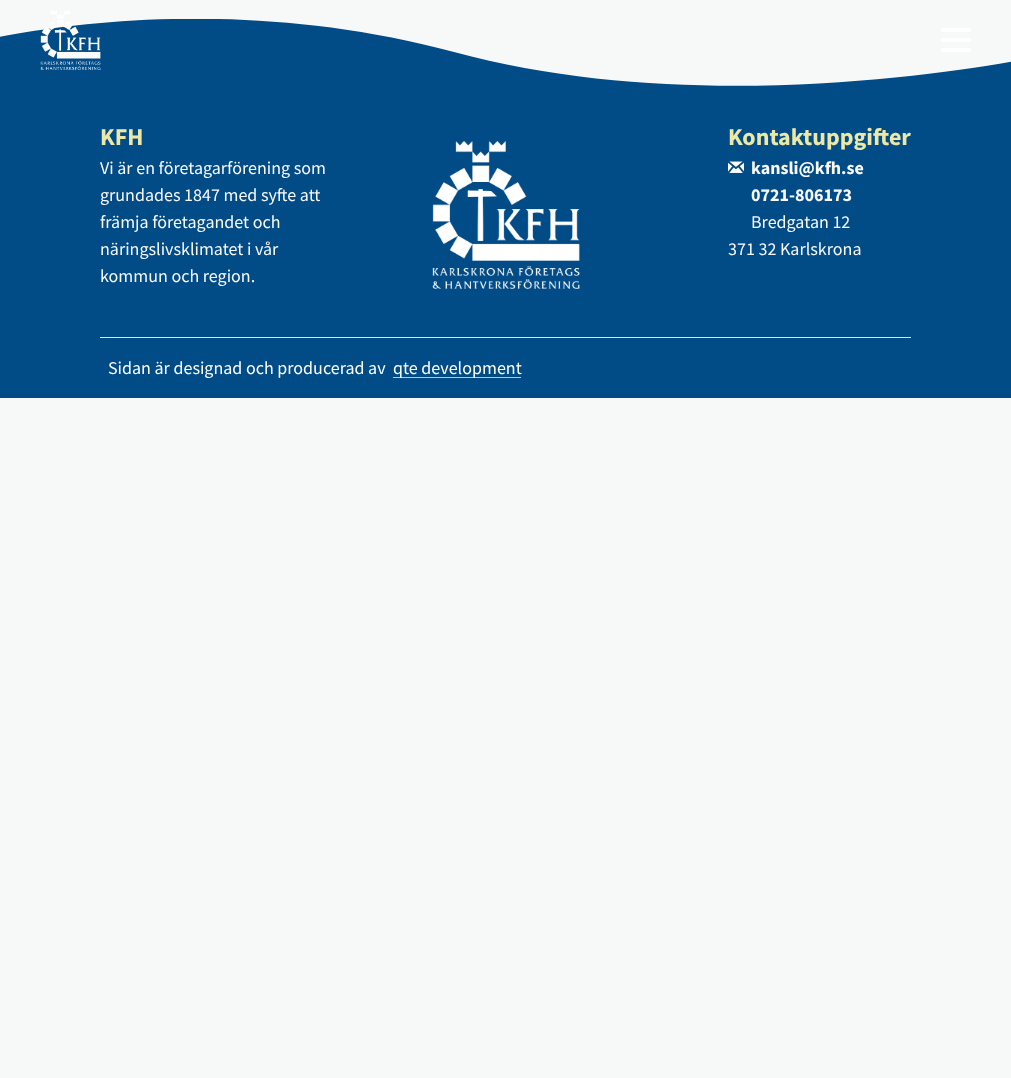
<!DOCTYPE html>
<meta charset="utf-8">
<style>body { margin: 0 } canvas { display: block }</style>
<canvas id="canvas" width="1011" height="1078"></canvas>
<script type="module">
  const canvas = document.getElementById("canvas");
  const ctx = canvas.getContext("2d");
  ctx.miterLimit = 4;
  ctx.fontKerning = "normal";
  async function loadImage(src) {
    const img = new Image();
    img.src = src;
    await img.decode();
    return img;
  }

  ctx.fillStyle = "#f7f8f8";
  ctx.fillRect(0, 0, 1011, 1078);
  ctx.save();
  ctx.beginPath();
  ctx.rect(0, 19, 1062, 95);
  ctx.clip();
  ctx.fillStyle = "#014b87";
  ctx.beginPath();
  ctx.moveTo(-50, 114);
  ctx.lineTo(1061, 114);
  ctx.lineTo(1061, 52);
  ctx.bezierCurveTo(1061, 52, 733, 128, 454, 52);
  ctx.bezierCurveTo(219, -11, 10, 32, -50, 48);
  ctx.closePath();
  ctx.fill("evenodd");
  ctx.restore();
  ctx.drawImage(await loadImage("img1.png"), 40, 10, 61, 60);
  ctx.fillStyle = "#ffffff";
  ctx.fillRect(941, 28, 30, 3);
  ctx.fillRect(970, 28, 1, 4);
  ctx.fillRect(941, 31, 30, 1);
  ctx.fillRect(941, 38, 30, 3);
  ctx.fillRect(970, 38, 1, 4);
  ctx.fillRect(941, 41, 30, 1);
  ctx.fillRect(941, 48, 30, 3);
  ctx.fillRect(970, 48, 1, 4);
  ctx.fillRect(941, 51, 30, 1);
  ctx.fillStyle = "#014b87";
  ctx.fillRect(0, 114, 1011, 284);
  ctx.fillStyle = "#eee8a7";
  ctx.fillRect(100, 337, 811, 1);
  ctx.font = "bold 24px Source Sans Pro";
  ctx.fillText("KFH", 100, 145);
  ctx.font = "18px Source Sans Pro";
  ctx.fillStyle = "#f9f9f9";
  ctx.fillText("Vi är en företagarförening som", 100, 174);
  ctx.fillText("grundades 1847 med syfte att", 100, 201);
  ctx.fillText("främja företagandet och", 100, 228);
  ctx.fillText("näringslivsklimatet i vår", 100, 255);
  ctx.fillText("kommun och region.", 100, 282);
  ctx.drawImage(await loadImage("img2.png"), 432, 141, 148, 148);
  ctx.font = "bold 24px Source Sans Pro";
  ctx.fillStyle = "#eee8a7";
  ctx.fillText("Kontaktuppgifter", 728, 145);
  ctx.drawImage(await loadImage("img3.png"), 728, 161, 16, 12);
  ctx.font = "bold 18px Source Sans Pro";
  ctx.fillStyle = "#f9f9f9";
  ctx.fillText("kansli@kfh.se", 751, 174);
  ctx.fillText("0721-806173", 751, 201);
  ctx.font = "18px Source Sans Pro";
  ctx.fillText("Bredgatan 12", 751, 228);
  ctx.fillText("371 32 Karlskrona", 728, 255);
  ctx.fillStyle = "#ffffff";
  ctx.fillText("Sidan är designad och producerad av", 108, 374);
  ctx.fillStyle = "#c4c4c4";
  ctx.fillRect(393, 377, 128, 1);
  ctx.fillStyle = "#ffffff";
  ctx.fillText("qte development", 393, 374);
</script>
